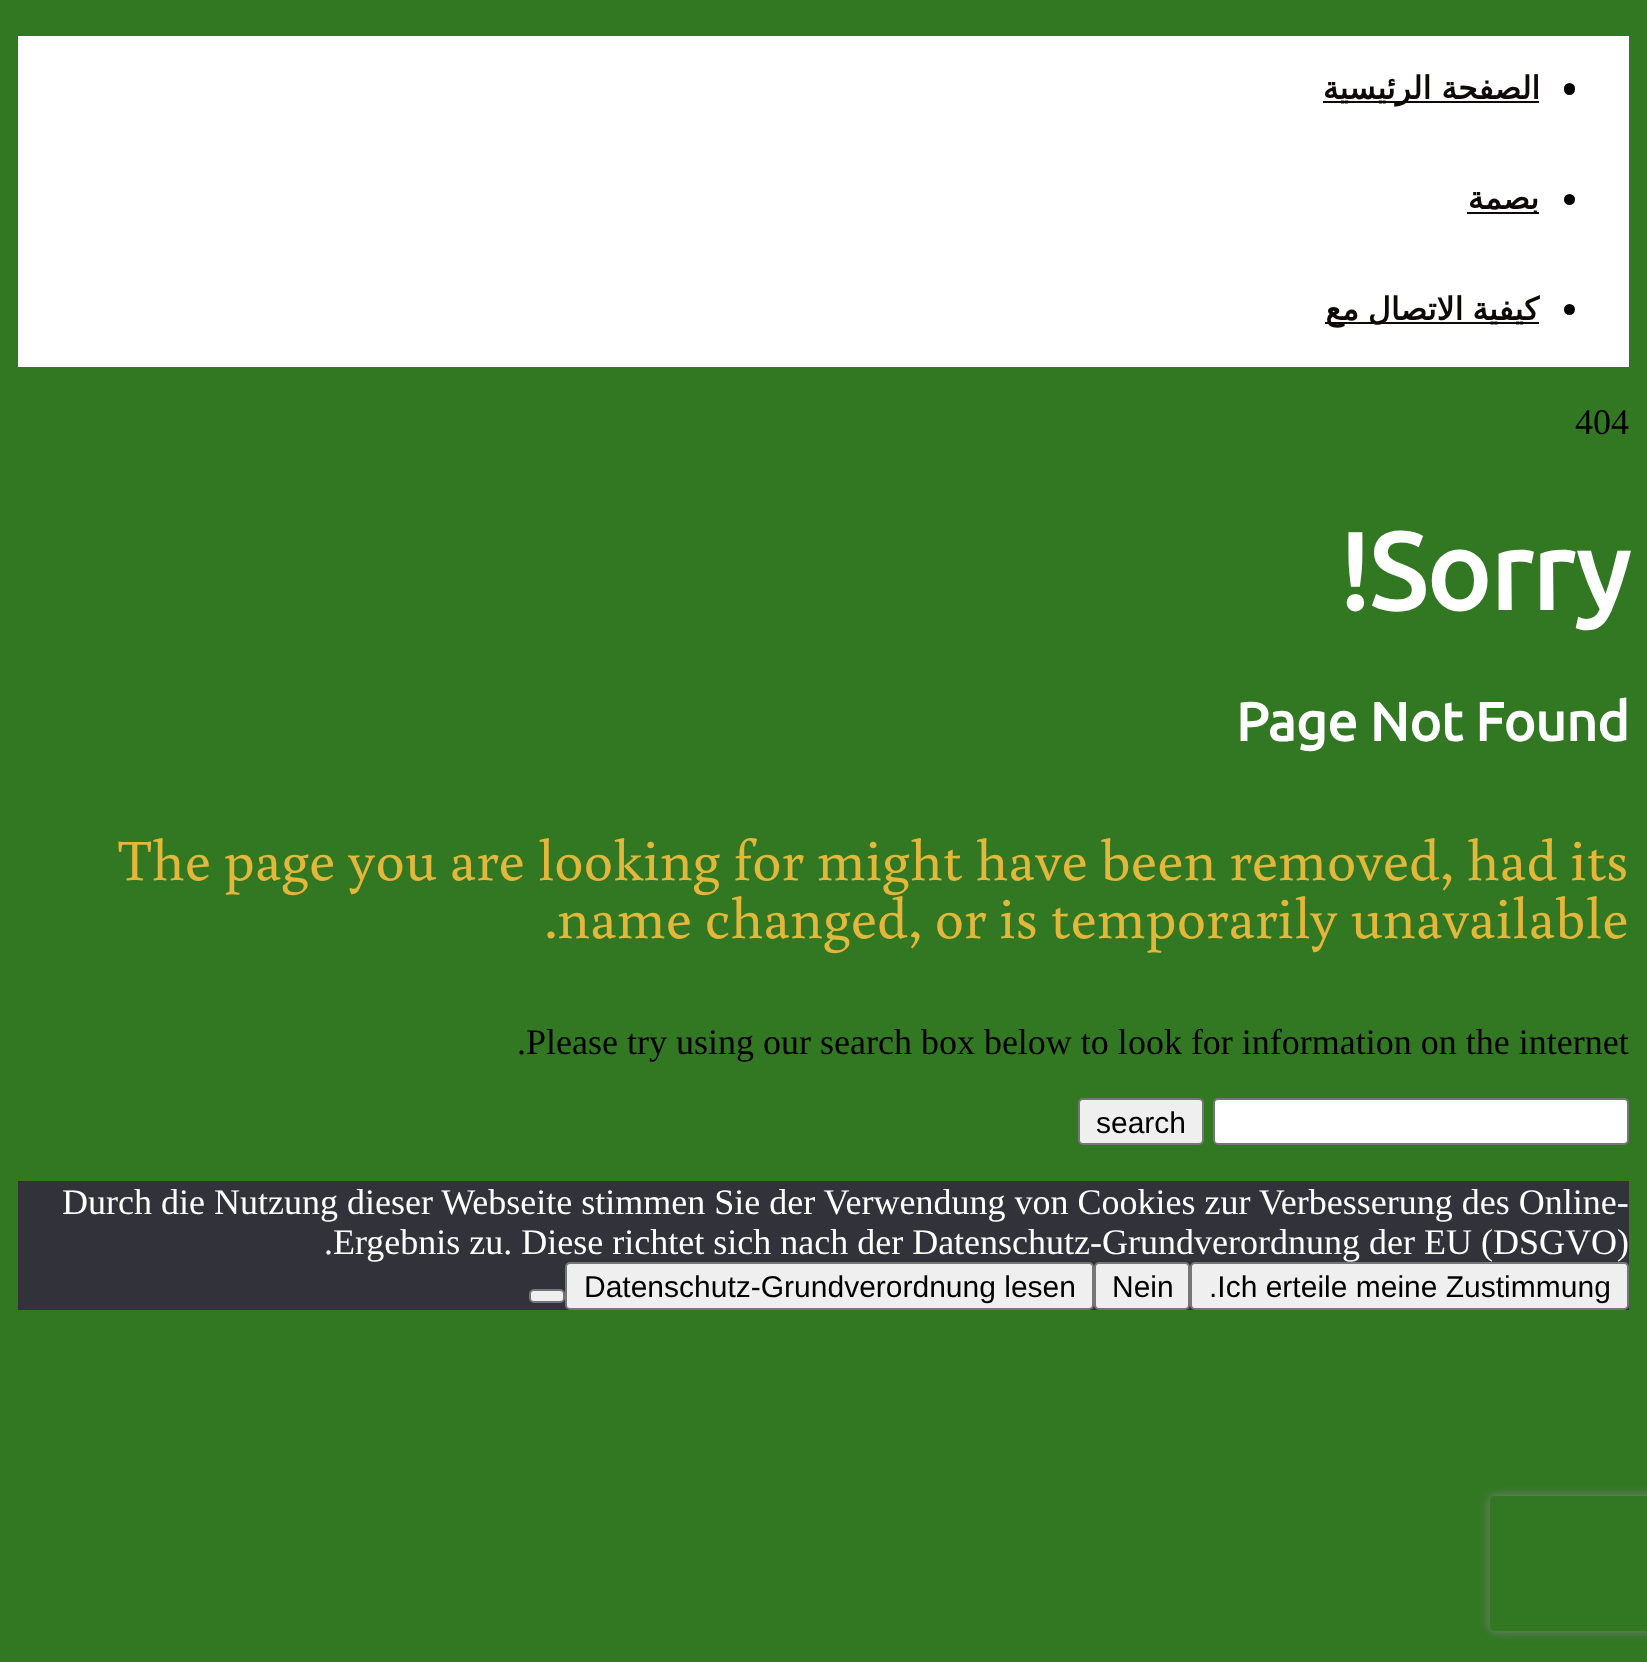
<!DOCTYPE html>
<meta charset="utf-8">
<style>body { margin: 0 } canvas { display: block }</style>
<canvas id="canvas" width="1647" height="1662"></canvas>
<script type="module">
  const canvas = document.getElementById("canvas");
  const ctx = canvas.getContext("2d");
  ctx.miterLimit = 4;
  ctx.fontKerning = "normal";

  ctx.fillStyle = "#327722";
  ctx.fillRect(0, 0, 1647, 1662);
  ctx.fillStyle = "#ffffff";
  ctx.fillRect(18, 36, 1611, 331);
  ctx.fillStyle = "#0f0a07";
  ctx.fillRect(1323, 101, 216, 2);
  ctx.direction = "rtl";
  ctx.font = "bold 31.5px DejaVu Sans";
  ctx.fillText("الصفحة الرئيسية", 1540, 99);
  ctx.fillStyle = "#000000";
  ctx.beginPath();
  ctx.roundRect(1564, 83, 11, 12, 5.5);
  ctx.fill();
  ctx.fillStyle = "#0f0a07";
  ctx.fillRect(1467, 212, 72, 2);
  ctx.fillText("بصمة", 1539, 209);
  ctx.fillStyle = "#000000";
  ctx.beginPath();
  ctx.arc(1569.5, 199.5, 5.5, 0, Math.PI * 2);
  ctx.fill();
  ctx.fillStyle = "#0f0a07";
  ctx.fillRect(1325, 322, 214, 2);
  ctx.wordSpacing = "-1px";
  ctx.fillText("كيفية الاتصال مع", 1539, 320);
  ctx.fillStyle = "#000000";
  ctx.beginPath();
  ctx.arc(1569.5, 309.5, 5.5, 0, Math.PI * 2);
  ctx.fill();
  ctx.wordSpacing = "0px";
  ctx.direction = "ltr";
  ctx.font = "36px Liberation Serif";
  ctx.fillText("404", 1575, 434);
  ctx.font = "bold 108px Ubuntu";
  ctx.fillStyle = "#ffffff";
  ctx.fillText("!Sorry", 1339, 610);
  ctx.font = "bold 54px Ubuntu";
  ctx.fillText("Page Not Found", 1236, 741);
  ctx.font = "58.5px Buenard";
  ctx.fillStyle = "#e3b63c";
  ctx.fillText("The page you are looking for might have been removed, had its", 118, 880);
  ctx.fillText(".name changed, or is temporarily unavailable", 545, 938);
  ctx.font = "36px Liberation Serif";
  ctx.fillStyle = "#000000";
  ctx.fillText(".Please try using our search box below to look for information on the internet", 517, 1054);
  ctx.fillStyle = "#efefef";
  ctx.beginPath();
  ctx.roundRect(1079, 1099, 124, 45, 4);
  ctx.fill();
  ctx.strokeStyle = "#767676";
  ctx.lineWidth = 2;
  ctx.stroke();
  ctx.font = "30px Liberation Sans";
  ctx.fillStyle = "#000000";
  ctx.fillText("search", 1096, 1133);
  ctx.fillStyle = "#ffffff";
  ctx.beginPath();
  ctx.roundRect(1214, 1099, 414, 45, 4);
  ctx.fill();
  ctx.stroke();
  ctx.fillStyle = "#32323a";
  ctx.fillRect(18, 1181, 1611, 129);
  ctx.font = "36px Liberation Serif";
  ctx.fillStyle = "#ffffff";
  ctx.fillText("Durch die Nutzung dieser Webseite stimmen Sie der Verwendung von Cookies zur Verbesserung des Online-", 62, 1214);
  ctx.fillText(".Ergebnis zu. Diese richtet sich nach der Datenschutz-Grundverordnung der EU (DSGVO)", 324, 1254);
  ctx.fillStyle = "#efefef";
  ctx.beginPath();
  ctx.roundRect(530, 1290, 34, 12, 4);
  ctx.fill();
  ctx.stroke();
  ctx.beginPath();
  ctx.roundRect(566, 1263, 527, 46, 4);
  ctx.fill();
  ctx.stroke();
  ctx.font = "30px Liberation Sans";
  ctx.fillStyle = "#000000";
  ctx.fillText("Datenschutz-Grundverordnung lesen", 584, 1297);
  ctx.fillStyle = "#efefef";
  ctx.beginPath();
  ctx.roundRect(1095, 1263, 94, 46, 4);
  ctx.fill();
  ctx.stroke();
  ctx.fillStyle = "#000000";
  ctx.fillText("Nein", 1112, 1297);
  ctx.fillStyle = "#efefef";
  ctx.beginPath();
  ctx.roundRect(1191, 1263, 437, 46, 4);
  ctx.fill();
  ctx.stroke();
  ctx.fillStyle = "#000000";
  ctx.fillText(".Ich erteile meine Zustimmung", 1209, 1297);
  ctx.save();
  ctx.beginPath();
  ctx.moveTo(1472, 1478);
  ctx.lineTo(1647, 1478);
  ctx.lineTo(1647, 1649);
  ctx.lineTo(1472, 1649);
  ctx.closePath();
  ctx.moveTo(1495, 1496);
  ctx.lineTo(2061, 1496);
  ctx.bezierCurveTo(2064, 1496, 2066, 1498, 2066, 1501);
  ctx.lineTo(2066, 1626);
  ctx.bezierCurveTo(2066, 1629, 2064, 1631, 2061, 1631);
  ctx.lineTo(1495, 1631);
  ctx.bezierCurveTo(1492, 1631, 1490, 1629, 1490, 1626);
  ctx.lineTo(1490, 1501);
  ctx.bezierCurveTo(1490, 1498, 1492, 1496, 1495, 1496);
  ctx.closePath();
  ctx.clip("evenodd");
  ctx.fillStyle = "#808080";
  ctx.filter = "blur(5.5px)";
  ctx.beginPath();
  ctx.roundRect(1490, 1496, 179, 135, 5);
  ctx.fill();
  ctx.filter = "none";
  ctx.restore();
</script>
